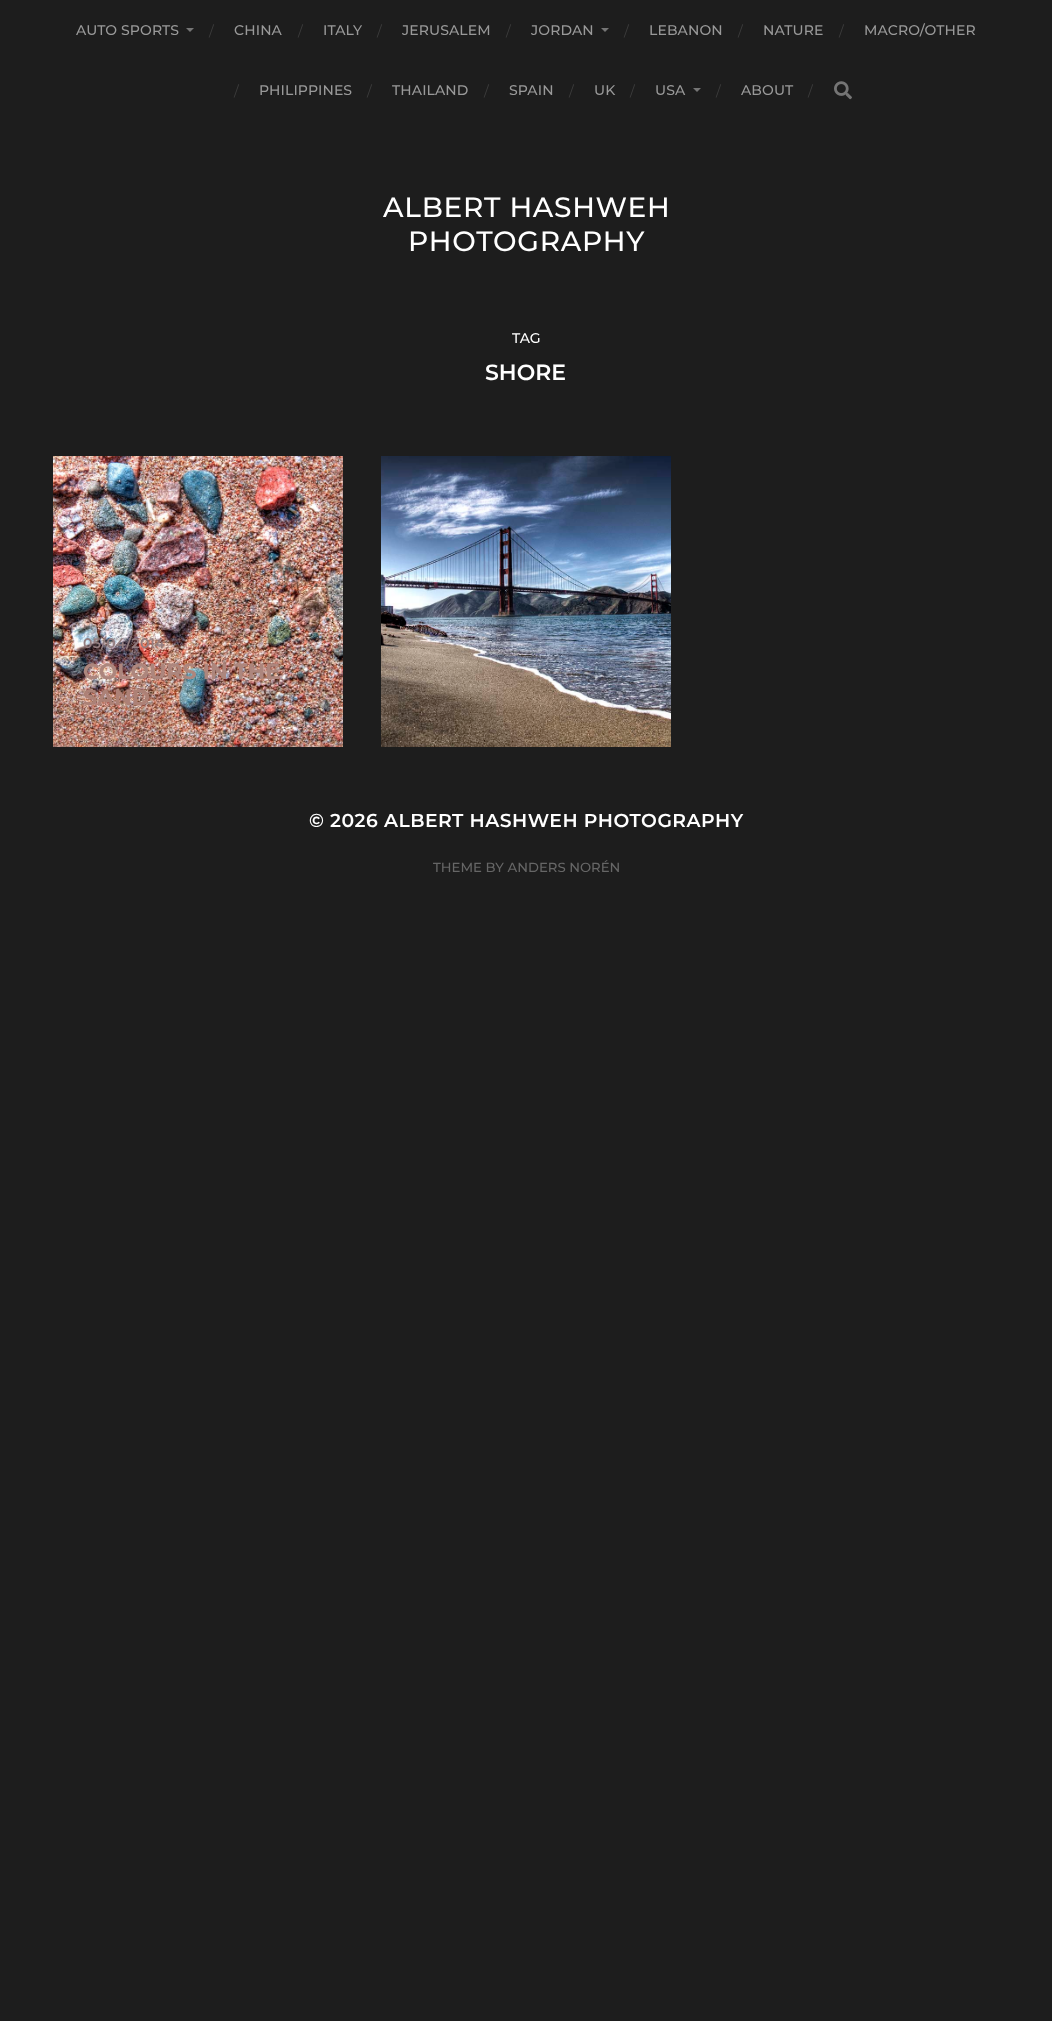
<!DOCTYPE html>
<meta charset="utf-8">
<style>body { margin: 0 } canvas { display: block }</style>
<canvas id="canvas" width="1052" height="2021"></canvas>
<script type="module">
  const canvas = document.getElementById("canvas");
  const ctx = canvas.getContext("2d");
  ctx.miterLimit = 4;
  ctx.fontKerning = "normal";
  async function loadImage(src) {
    const img = new Image();
    img.src = src;
    await img.decode();
    return img;
  }

  ctx.fillStyle = "#1d1d1d";
  ctx.fillRect(0, 0, 1052, 2021);
  ctx.letterSpacing = "0.1px";
  ctx.font = "100 14px Montserrat";
  ctx.fillStyle = "#999999";
  ctx.fillText("AUTO SPORTS", 76, 35);
  ctx.fillStyle = "#757575";
  ctx.beginPath();
  ctx.moveTo(186, 28);
  ctx.lineTo(194, 28);
  ctx.lineTo(190, 32);
  ctx.closePath();
  ctx.fill();
  ctx.letterSpacing = "0px";
  ctx.font = "100 14px 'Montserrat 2'";
  ctx.fillStyle = "#3d3d3d";
  ctx.fillText("/", 209, 36);
  ctx.letterSpacing = "0.1px";
  ctx.font = "100 14px Montserrat";
  ctx.fillStyle = "#999999";
  ctx.fillText("CHINA", 234, 35);
  ctx.letterSpacing = "0px";
  ctx.font = "100 14px 'Montserrat 2'";
  ctx.fillStyle = "#3d3d3d";
  ctx.fillText("/", 298, 36);
  ctx.letterSpacing = "0.1px";
  ctx.font = "100 14px Montserrat";
  ctx.fillStyle = "#999999";
  ctx.fillText("ITALY", 323, 35);
  ctx.letterSpacing = "0px";
  ctx.font = "100 14px 'Montserrat 2'";
  ctx.fillStyle = "#3d3d3d";
  ctx.fillText("/", 377, 36);
  ctx.letterSpacing = "0.1px";
  ctx.font = "100 14px Montserrat";
  ctx.fillStyle = "#999999";
  ctx.fillText("JERUSALEM", 402, 35);
  ctx.letterSpacing = "0px";
  ctx.font = "100 14px 'Montserrat 2'";
  ctx.fillStyle = "#3d3d3d";
  ctx.fillText("/", 506, 36);
  ctx.letterSpacing = "0.1px";
  ctx.font = "100 14px Montserrat";
  ctx.fillStyle = "#999999";
  ctx.fillText("JORDAN", 531, 35);
  ctx.fillStyle = "#757575";
  ctx.beginPath();
  ctx.moveTo(601, 28);
  ctx.lineTo(609, 28);
  ctx.lineTo(605, 32);
  ctx.closePath();
  ctx.fill();
  ctx.letterSpacing = "0px";
  ctx.font = "100 14px 'Montserrat 2'";
  ctx.fillStyle = "#3d3d3d";
  ctx.fillText("/", 624, 36);
  ctx.letterSpacing = "0.1px";
  ctx.font = "100 14px Montserrat";
  ctx.fillStyle = "#999999";
  ctx.fillText("LEBANON", 649, 35);
  ctx.letterSpacing = "0px";
  ctx.font = "100 14px 'Montserrat 2'";
  ctx.fillStyle = "#3d3d3d";
  ctx.fillText("/", 738, 36);
  ctx.letterSpacing = "0.1px";
  ctx.font = "100 14px Montserrat";
  ctx.fillStyle = "#999999";
  ctx.fillText("NATURE", 763, 35);
  ctx.letterSpacing = "0px";
  ctx.font = "100 14px 'Montserrat 2'";
  ctx.fillStyle = "#3d3d3d";
  ctx.fillText("/", 839, 36);
  ctx.letterSpacing = "0.1px";
  ctx.font = "100 14px Montserrat";
  ctx.fillStyle = "#999999";
  ctx.fillText("MACRO/OTHER", 864, 35);
  ctx.letterSpacing = "0px";
  ctx.font = "100 14px 'Montserrat 2'";
  ctx.fillStyle = "#3d3d3d";
  ctx.fillText("/", 234, 96);
  ctx.letterSpacing = "0.1px";
  ctx.font = "100 14px Montserrat";
  ctx.fillStyle = "#999999";
  ctx.fillText("PHILIPPINES", 259, 95);
  ctx.letterSpacing = "0px";
  ctx.font = "100 14px 'Montserrat 2'";
  ctx.fillStyle = "#3d3d3d";
  ctx.fillText("/", 367, 96);
  ctx.letterSpacing = "0.1px";
  ctx.font = "100 14px Montserrat";
  ctx.fillStyle = "#999999";
  ctx.fillText("THAILAND", 392, 95);
  ctx.letterSpacing = "0px";
  ctx.font = "100 14px 'Montserrat 2'";
  ctx.fillStyle = "#3d3d3d";
  ctx.fillText("/", 484, 96);
  ctx.letterSpacing = "0.1px";
  ctx.font = "100 14px Montserrat";
  ctx.fillStyle = "#999999";
  ctx.fillText("SPAIN", 509, 95);
  ctx.letterSpacing = "0px";
  ctx.font = "100 14px 'Montserrat 2'";
  ctx.fillStyle = "#3d3d3d";
  ctx.fillText("/", 569, 96);
  ctx.letterSpacing = "0.1px";
  ctx.font = "100 14px Montserrat";
  ctx.fillStyle = "#999999";
  ctx.fillText("UK", 594, 95);
  ctx.letterSpacing = "0px";
  ctx.font = "100 14px 'Montserrat 2'";
  ctx.fillStyle = "#3d3d3d";
  ctx.fillText("/", 630, 96);
  ctx.letterSpacing = "0.1px";
  ctx.font = "100 14px Montserrat";
  ctx.fillStyle = "#999999";
  ctx.fillText("USA", 655, 95);
  ctx.fillStyle = "#757575";
  ctx.beginPath();
  ctx.moveTo(693, 88);
  ctx.lineTo(701, 88);
  ctx.lineTo(697, 92);
  ctx.closePath();
  ctx.fill();
  ctx.letterSpacing = "0px";
  ctx.font = "100 14px 'Montserrat 2'";
  ctx.fillStyle = "#3d3d3d";
  ctx.fillText("/", 716, 96);
  ctx.letterSpacing = "0.1px";
  ctx.font = "100 14px Montserrat";
  ctx.fillStyle = "#999999";
  ctx.fillText("ABOUT", 741, 95);
  ctx.letterSpacing = "0px";
  ctx.font = "100 14px 'Montserrat 2'";
  ctx.fillStyle = "#3d3d3d";
  ctx.fillText("/", 808, 96);
  ctx.drawImage(await loadImage("img1.png"), 834, 81, 18, 19);
  ctx.letterSpacing = "0.75px";
  ctx.font = "100 28px Montserrat";
  ctx.fillStyle = "#ffffff";
  ctx.fillText("ALBERT HASHWEH", 383, 217);
  ctx.fillText("PHOTOGRAPHY", 408, 251);
  ctx.letterSpacing = "0px";
  ctx.font = "100 14px Montserrat";
  ctx.fillText("TAG", 512, 343);
  ctx.font = "100 22px 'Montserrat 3'";
  ctx.fillText("SHORE", 485, 380);
  ctx.drawImage(await loadImage("img2.png"), 53, 456, 290, 291);
  ctx.letterSpacing = "0.25px";
  ctx.font = "100 14px 'Montserrat 3'";
  ctx.fillStyle = "#947e80";
  ctx.fillText("05/04/2014", 83, 648);
  ctx.letterSpacing = "0px";
  ctx.font = "100 22px 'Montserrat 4'";
  ctx.fillStyle = "#ad867d";
  ctx.fillText("COLOURS IN THE", 83, 679);
  ctx.fillStyle = "#ad8176";
  ctx.fillText("SAND", 83, 705);
  ctx.drawImage(await loadImage("img3.png"), 381, 456, 290, 291);
  ctx.letterSpacing = "0.5px";
  ctx.font = "100 18.75px 'Montserrat 3'";
  ctx.fillStyle = "#ffffff";
  ctx.fillText("© 2026", 309, 827);
  ctx.fillText("ALBERT HASHWEH PHOTOGRAPHY", 384, 827);
  ctx.letterSpacing = "0px";
  ctx.font = "100 13.25px Montserrat";
  ctx.fillStyle = "#666666";
  ctx.fillText("THEME BY ANDERS NORÉN", 433, 872);
</script>
